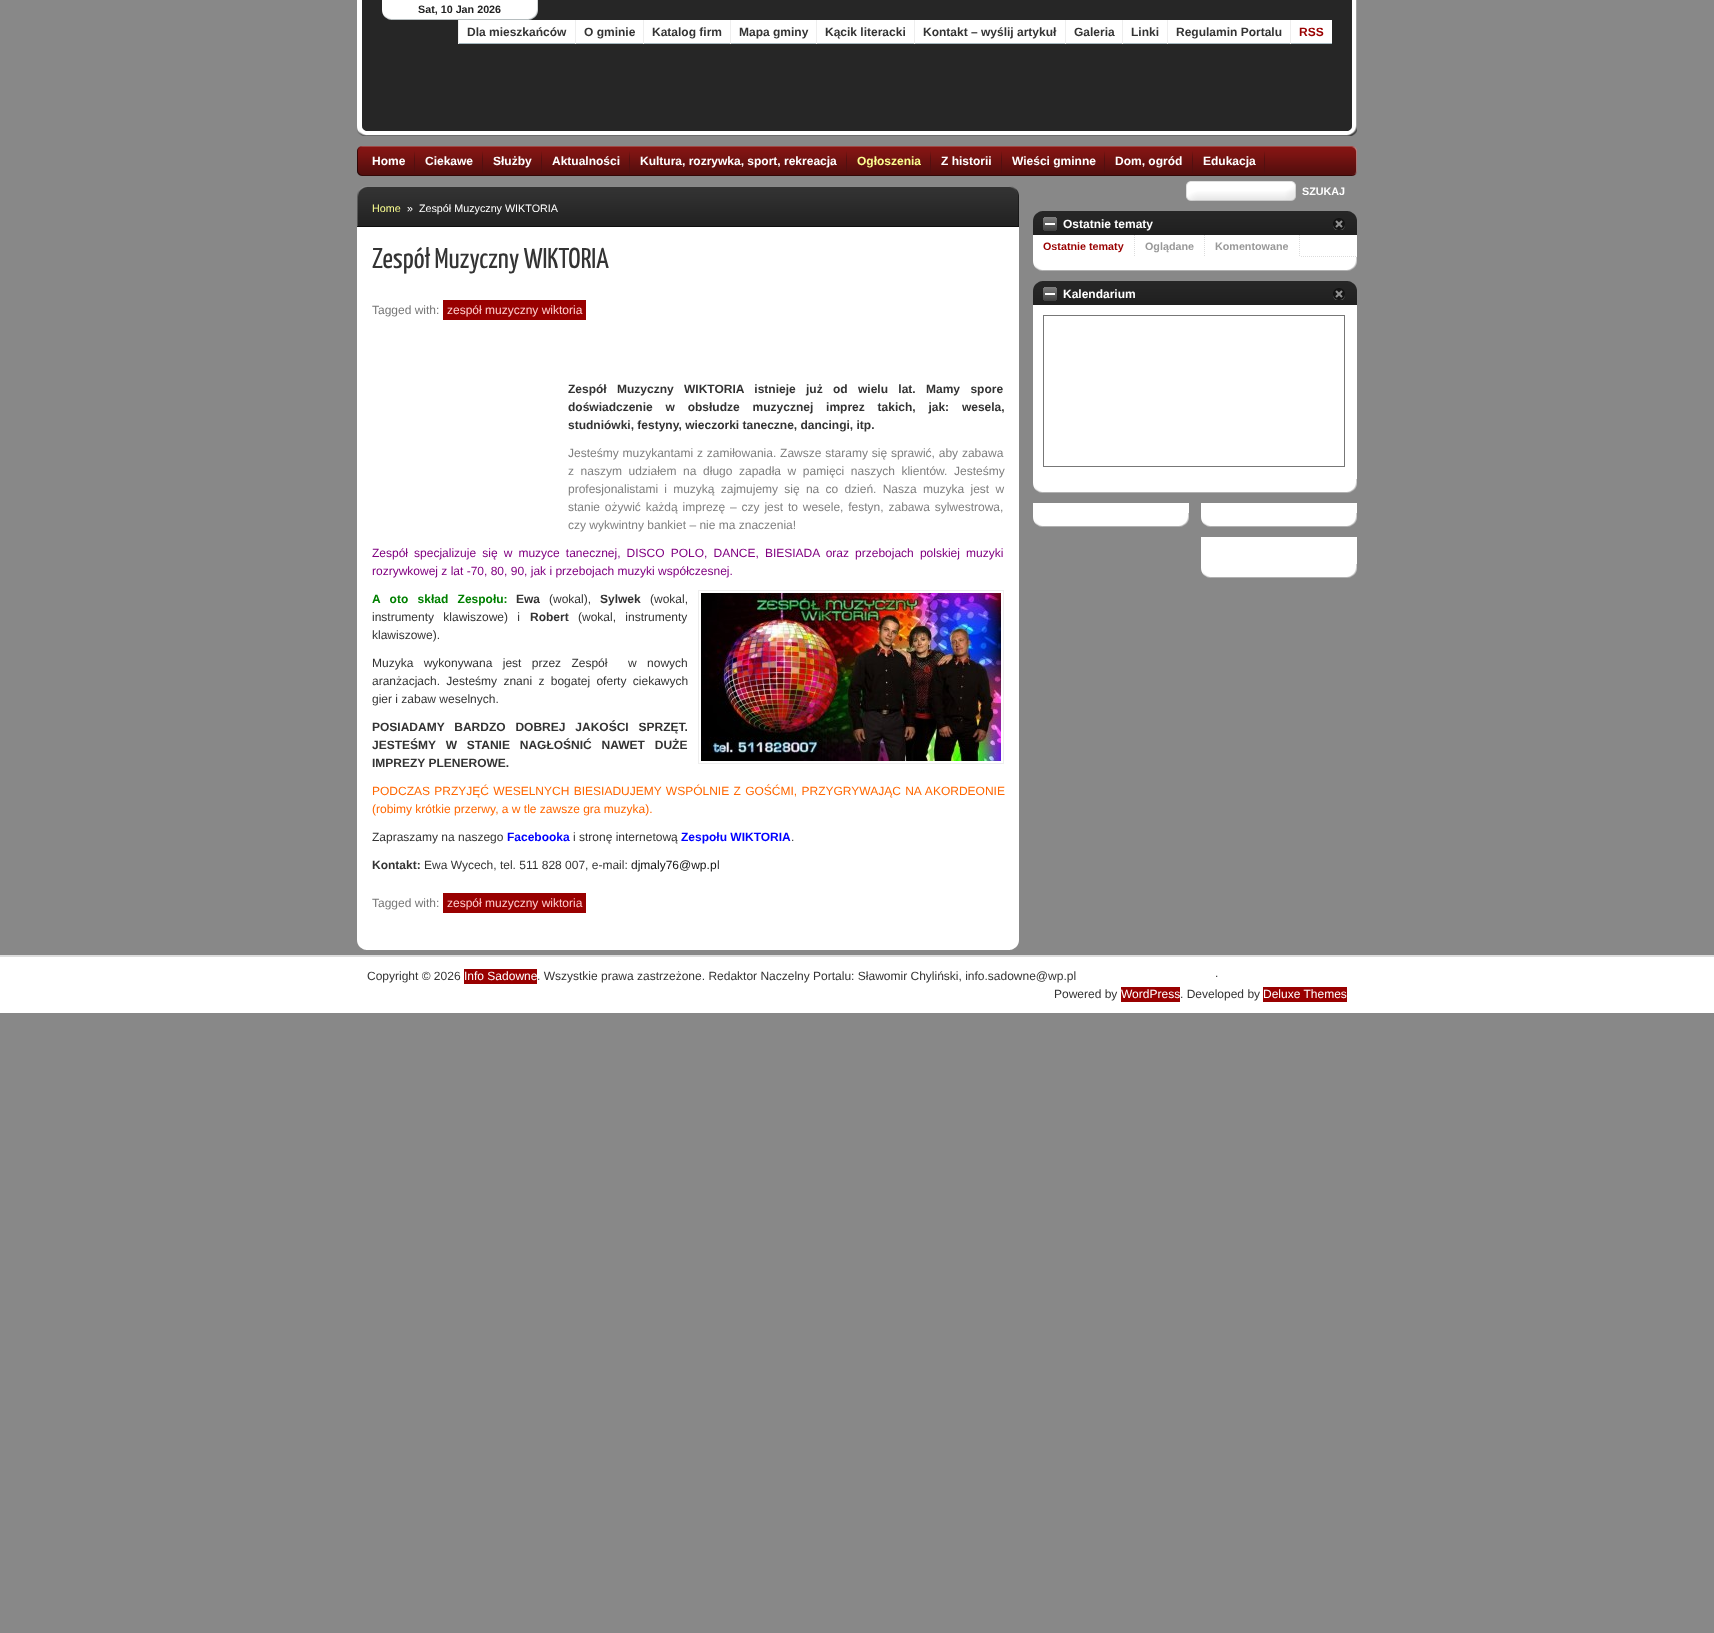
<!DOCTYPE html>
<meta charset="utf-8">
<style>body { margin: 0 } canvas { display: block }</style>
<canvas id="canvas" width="1714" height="1633"></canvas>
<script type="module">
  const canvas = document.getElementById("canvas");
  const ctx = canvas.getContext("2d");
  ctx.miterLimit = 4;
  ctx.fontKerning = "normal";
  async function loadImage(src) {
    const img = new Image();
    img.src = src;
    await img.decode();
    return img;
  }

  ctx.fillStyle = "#888888";
  ctx.fillRect(0, 0, 1714, 1633);
  ctx.drawImage(await loadImage("img1.png"), 357, 0, 1000, 136);
  ctx.drawImage(await loadImage("img2.png"), 382, 0, 156, 20);
  ctx.font = "bold 10.75px Liberation Sans";
  ctx.fillStyle = "#222222";
  ctx.fillText("Sat, 10 Jan 2026", 418, 13);
  ctx.fillStyle = "#ffffff";
  ctx.fillRect(459, 20, 116, 23);
  ctx.fillStyle = "#a6b8bf";
  ctx.fillRect(458, 43, 874, 1);
  ctx.fillStyle = "#eeeeee";
  ctx.fillRect(458, 20, 1, 24);
  ctx.font = "bold 12px Liberation Sans";
  ctx.fillStyle = "#333333";
  ctx.fillText("Dla mieszkańców", 467, 36);
  ctx.fillStyle = "#ffffff";
  ctx.fillRect(576, 20, 67, 23);
  ctx.fillStyle = "#eeeeee";
  ctx.fillRect(575, 20, 1, 24);
  ctx.fillStyle = "#333333";
  ctx.fillText("O gminie", 584, 36);
  ctx.fillStyle = "#ffffff";
  ctx.fillRect(644, 20, 86, 23);
  ctx.fillStyle = "#eeeeee";
  ctx.fillRect(643, 20, 1, 24);
  ctx.fillStyle = "#333333";
  ctx.fillText("Katalog firm", 652, 36);
  ctx.fillStyle = "#ffffff";
  ctx.fillRect(731, 20, 85, 23);
  ctx.fillStyle = "#eeeeee";
  ctx.fillRect(730, 20, 1, 24);
  ctx.fillStyle = "#333333";
  ctx.fillText("Mapa gminy", 739, 36);
  ctx.fillStyle = "#ffffff";
  ctx.fillRect(817, 20, 97, 23);
  ctx.fillStyle = "#eeeeee";
  ctx.fillRect(816, 20, 1, 24);
  ctx.fillStyle = "#333333";
  ctx.fillText("Kącik literacki", 825, 36);
  ctx.fillStyle = "#ffffff";
  ctx.fillRect(915, 20, 150, 23);
  ctx.fillStyle = "#eeeeee";
  ctx.fillRect(914, 20, 1, 24);
  ctx.fillStyle = "#333333";
  ctx.fillText("Kontakt – wyślij artykuł", 923, 36);
  ctx.fillStyle = "#ffffff";
  ctx.fillRect(1066, 20, 56, 23);
  ctx.fillStyle = "#eeeeee";
  ctx.fillRect(1065, 20, 1, 24);
  ctx.fillStyle = "#333333";
  ctx.fillText("Galeria", 1074, 36);
  ctx.fillStyle = "#ffffff";
  ctx.fillRect(1123, 20, 44, 23);
  ctx.fillStyle = "#eeeeee";
  ctx.fillRect(1122, 20, 1, 24);
  ctx.fillStyle = "#333333";
  ctx.fillText("Linki", 1131, 36);
  ctx.fillStyle = "#ffffff";
  ctx.fillRect(1168, 20, 122, 23);
  ctx.fillStyle = "#eeeeee";
  ctx.fillRect(1167, 20, 1, 24);
  ctx.fillStyle = "#333333";
  ctx.fillText("Regulamin Portalu", 1176, 36);
  ctx.fillStyle = "#ffffff";
  ctx.fillRect(1291, 20, 41, 23);
  ctx.fillStyle = "#eeeeee";
  ctx.fillRect(1290, 20, 1, 24);
  ctx.fillStyle = "#990000";
  ctx.fillText("RSS", 1299, 36);
  ctx.drawImage(await loadImage("img3.png"), 357, 146, 1000, 30);
  ctx.drawImage(await loadImage("img4.png"), 414, 151, 1, 22);
  ctx.fillStyle = "#ffffff";
  ctx.fillText("Home", 372, 165);
  ctx.drawImage(await loadImage("img4.png"), 482, 151, 1, 22);
  ctx.fillText("Ciekawe", 425, 165);
  ctx.drawImage(await loadImage("img4.png"), 541, 151, 1, 22);
  ctx.fillText("Służby", 493, 165);
  ctx.drawImage(await loadImage("img4.png"), 629, 151, 1, 22);
  ctx.fillText("Aktualności", 552, 165);
  ctx.drawImage(await loadImage("img4.png"), 846, 151, 1, 22);
  ctx.fillText("Kultura, rozrywka, sport, rekreacja", 640, 165);
  ctx.drawImage(await loadImage("img4.png"), 930, 151, 1, 22);
  ctx.fillStyle = "#fbff90";
  ctx.fillText("Ogłoszenia", 857, 165);
  ctx.drawImage(await loadImage("img4.png"), 1001, 151, 1, 22);
  ctx.fillStyle = "#ffffff";
  ctx.fillText("Z historii", 941, 165);
  ctx.drawImage(await loadImage("img4.png"), 1104, 151, 1, 22);
  ctx.fillText("Wieści gminne", 1012, 165);
  ctx.drawImage(await loadImage("img4.png"), 1192, 151, 1, 22);
  ctx.fillText("Dom, ogród", 1115, 165);
  ctx.drawImage(await loadImage("img4.png"), 1264, 151, 1, 22);
  ctx.fillText("Edukacja", 1203, 165);
  ctx.drawImage(await loadImage("img5.png"), 1186, 181, 110, 20);
  ctx.font = "bold 10.75px Liberation Sans";
  ctx.fillText("SZUKAJ", 1302, 195);
  ctx.drawImage(await loadImage("img6.png"), 357, 186, 662, 41);
  ctx.font = "10.75px Liberation Sans";
  ctx.fillStyle = "#fbff90";
  ctx.fillText("Home", 372, 212);
  ctx.fillStyle = "#ffffff";
  ctx.fillText("»  Zespół Muzyczny WIKTORIA", 407, 212);
  ctx.fillRect(357, 227, 662, 708);
  ctx.font = "28.75px Yanone Kaffeesatz";
  ctx.fillStyle = "#333333";
  ctx.fillText("Zespół Muzyczny WIKTORIA", 372, 268);
  ctx.font = "12px Liberation Sans";
  ctx.fillStyle = "#777777";
  ctx.fillText("Tagged with:", 372, 314);
  ctx.fillStyle = "#990000";
  ctx.fillRect(443, 300, 143, 20);
  ctx.fillStyle = "#ffcccc";
  ctx.fillText("zespół muzyczny wiktoria", 447, 314);
  ctx.wordSpacing = "7px";
  ctx.font = "bold 12px Liberation Sans";
  ctx.fillStyle = "#333333";
  ctx.fillText("Zespół Muzyczny WIKTORIA istnieje już od wielu lat. Mamy spore", 568, 393);
  ctx.wordSpacing = "9.5px";
  ctx.fillText("doświadczenie w obsłudze muzycznej imprez takich, jak: wesela,", 568, 411);
  ctx.wordSpacing = "0px";
  ctx.fillText("studniówki, festyny, wieczorki taneczne, dancingi, itp.", 568, 429);
  ctx.wordSpacing = "0.5px";
  ctx.font = "12px Liberation Sans";
  ctx.fillStyle = "#808080";
  ctx.fillText("Jesteśmy muzykantami z zamiłowania. Zawsze staramy się sprawić, aby zabawa", 568, 457);
  ctx.wordSpacing = "3.25px";
  ctx.fillText("z naszym udziałem na długo zapadła w pamięci naszych klientów. Jesteśmy", 568, 475);
  ctx.wordSpacing = "2.9px";
  ctx.fillText("profesjonalistami i muzyką zajmujemy się na co dzień. Nasza muzyka jest w", 568, 493);
  ctx.wordSpacing = "1.5px";
  ctx.fillText("stanie ożywić każdą imprezę – czy jest to wesele, festyn, zabawa sylwestrowa,", 568, 511);
  ctx.wordSpacing = "0px";
  ctx.fillText("czy wykwintny bankiet – nie ma znaczenia!", 568, 529);
  ctx.wordSpacing = "2.75px";
  ctx.fillStyle = "#800080";
  ctx.fillText("Zespół specjalizuje się w muzyce tanecznej, DISCO POLO, DANCE, BIESIADA oraz przebojach polskiej muzyki", 372, 557);
  ctx.wordSpacing = "0px";
  ctx.fillText("rozrywkowej z lat -70, 80, 90, jak i przebojach muzyki współczesnej.", 372, 575);
  ctx.wordSpacing = "6px";
  ctx.font = "bold 12px Liberation Sans";
  ctx.fillStyle = "#008000";
  ctx.fillText("A oto skład Zespołu:", 372, 603);
  ctx.strokeStyle = "#eeeeee";
  ctx.strokeRect(698.5, 590.5, 305, 173);
  ctx.drawImage(await loadImage("img7.png"), 701, 593, 300, 168);
  ctx.wordSpacing = "0px";
  ctx.fillStyle = "#333333";
  ctx.fillText("Ewa", 516, 603);
  ctx.font = "12px Liberation Sans";
  ctx.fillText("(wokal),", 549, 603);
  ctx.font = "bold 12px Liberation Sans";
  ctx.fillText("Sylwek", 600, 603);
  ctx.font = "12px Liberation Sans";
  ctx.fillText("(wokal,", 650, 603);
  ctx.wordSpacing = "6px";
  ctx.fillText("instrumenty klawiszowe) i", 372, 621);
  ctx.wordSpacing = "0px";
  ctx.font = "bold 12px Liberation Sans";
  ctx.fillText("Robert", 530, 621);
  ctx.wordSpacing = "6px";
  ctx.font = "12px Liberation Sans";
  ctx.fillText("(wokal, instrumenty", 578, 621);
  ctx.wordSpacing = "0px";
  ctx.fillText("klawiszowe).", 372, 639);
  ctx.wordSpacing = "7px";
  ctx.fillText("Muzyka wykonywana jest przez Zespół  w nowych", 372, 667);
  ctx.wordSpacing = "3px";
  ctx.fillText("aranżacjach. Jesteśmy znani z bogatej oferty ciekawych", 372, 685);
  ctx.wordSpacing = "0px";
  ctx.fillText("gier i zabaw weselnych.", 372, 703);
  ctx.wordSpacing = "6.5px";
  ctx.font = "bold 12px Liberation Sans";
  ctx.fillText("POSIADAMY BARDZO DOBREJ JAKOŚCI SPRZĘT.", 372, 731);
  ctx.fillText("JESTEŚMY W STANIE NAGŁOŚNIĆ NAWET DUŻE", 372, 749);
  ctx.wordSpacing = "0px";
  ctx.fillText("IMPREZY PLENEROWE.", 372, 767);
  ctx.wordSpacing = "1px";
  ctx.font = "12px Liberation Sans";
  ctx.fillStyle = "#ff6600";
  ctx.fillText("PODCZAS PRZYJĘĆ WESELNYCH BIESIADUJEMY WSPÓLNIE Z GOŚĆMI, PRZYGRYWAJĄC NA AKORDEONIE", 372, 795);
  ctx.wordSpacing = "0px";
  ctx.fillText("(robimy krótkie przerwy, a w tle zawsze gra muzyka).", 372, 813);
  ctx.fillStyle = "#333333";
  ctx.fillText("Zapraszamy na naszego", 372, 841);
  ctx.font = "bold 12px Liberation Sans";
  ctx.fillStyle = "#0000ff";
  ctx.fillText("Facebooka", 507, 841);
  ctx.font = "12px Liberation Sans";
  ctx.fillStyle = "#333333";
  ctx.fillText("i stronę internetową", 573, 841);
  ctx.font = "bold 12px Liberation Sans";
  ctx.fillStyle = "#0000ff";
  ctx.fillText("Zespołu WIKTORIA", 681, 841);
  ctx.font = "12px Liberation Sans";
  ctx.fillStyle = "#333333";
  ctx.fillText(".", 791, 841);
  ctx.font = "bold 12px Liberation Sans";
  ctx.fillText("Kontakt:", 372, 869);
  ctx.font = "12px Liberation Sans";
  ctx.fillText("Ewa Wycech, tel. 511 828 007, e-mail:", 424, 869);
  ctx.fillStyle = "#111111";
  ctx.fillText("djmaly76@wp.p", 631, 869);
  ctx.fillStyle = "#333333";
  ctx.fillText("l", 717, 869);
  ctx.fillStyle = "#777777";
  ctx.fillText("Tagged with:", 372, 907);
  ctx.fillStyle = "#990000";
  ctx.fillRect(443, 893, 143, 20);
  ctx.fillStyle = "#ffcccc";
  ctx.fillText("zespół muzyczny wiktoria", 447, 907);
  ctx.drawImage(await loadImage("img8.png"), 357, 935, 662, 15);
  ctx.drawImage(await loadImage("img9.png"), 1033, 211, 324, 24);
  ctx.drawImage(await loadImage("img10.png"), 1043, 217, 14, 14);
  ctx.font = "bold 12px Liberation Sans";
  ctx.fillStyle = "#ffffff";
  ctx.fillText("Ostatnie tematy", 1063, 228);
  ctx.drawImage(await loadImage("img11.png"), 1333, 218, 12, 12);
  ctx.fillRect(1300, 235, 57, 22);
  ctx.beginPath();
  ctx.moveTo(1033, 256.5);
  ctx.lineTo(1357, 256.5);
  ctx.strokeStyle = "#dddddd";
  ctx.setLineDash([1, 1]);
  ctx.stroke();
  ctx.fillRect(1033, 235, 267, 22);
  ctx.beginPath();
  ctx.moveTo(1134.5, 235);
  ctx.lineTo(1134.5, 257);
  ctx.stroke();
  ctx.font = "bold 10.75px Liberation Sans";
  ctx.fillStyle = "#990000";
  ctx.fillText("Ostatnie tematy", 1043, 250);
  ctx.beginPath();
  ctx.moveTo(1204.5, 235);
  ctx.lineTo(1204.5, 257);
  ctx.stroke();
  ctx.fillStyle = "#999999";
  ctx.fillText("Oglądane", 1145, 250);
  ctx.beginPath();
  ctx.moveTo(1299.5, 235);
  ctx.lineTo(1299.5, 257);
  ctx.stroke();
  ctx.fillText("Komentowane", 1215, 250);
  ctx.drawImage(await loadImage("img12.png"), 1033, 257, 324, 14);
  ctx.drawImage(await loadImage("img9.png"), 1033, 281, 324, 24);
  ctx.drawImage(await loadImage("img10.png"), 1043, 287, 14, 14);
  ctx.font = "bold 12px Liberation Sans";
  ctx.fillStyle = "#ffffff";
  ctx.fillText("Kalendarium", 1063, 298);
  ctx.drawImage(await loadImage("img11.png"), 1333, 288, 12, 12);
  ctx.fillRect(1033, 305, 324, 174);
  ctx.strokeStyle = "#777777";
  ctx.setLineDash([]);
  ctx.strokeRect(1043.5, 315.5, 301, 151);
  ctx.drawImage(await loadImage("img12.png"), 1033, 479, 324, 14);
  ctx.fillRect(1033, 503, 156, 10);
  ctx.drawImage(await loadImage("img13.png"), 1033, 513, 156, 14);
  ctx.fillRect(1201, 503, 156, 10);
  ctx.drawImage(await loadImage("img13.png"), 1201, 513, 156, 14);
  ctx.fillRect(1201, 537, 156, 27);
  ctx.drawImage(await loadImage("img13.png"), 1201, 564, 156, 14);
  ctx.fillRect(0, 957, 1714, 56);
  ctx.fillStyle = "#dddddd";
  ctx.fillRect(0, 955, 1714, 2);
  ctx.font = "12px Liberation Sans";
  ctx.fillStyle = "#333333";
  ctx.fillText("Copyright © 2026", 367, 980);
  ctx.fillStyle = "#990000";
  ctx.fillRect(464, 969, 73, 15);
  ctx.fillStyle = "#ffffff";
  ctx.fillText("Info Sadowne", 464, 980);
  ctx.fillStyle = "#333333";
  ctx.fillText(". Wszystkie prawa zastrzeżone. Redaktor Naczelny Portalu: Sławomir Chyliński, info.sadowne@wp.pl", 537, 980);
  ctx.fillText(".", 1215, 977);
  ctx.fillText("Powered by", 1054, 998);
  ctx.fillStyle = "#990000";
  ctx.fillRect(1121, 987, 59, 15);
  ctx.fillStyle = "#ffffff";
  ctx.fillText("WordPress", 1121, 998);
  ctx.fillStyle = "#333333";
  ctx.fillText(". Developed by", 1180, 998);
  ctx.fillStyle = "#990000";
  ctx.fillRect(1263, 987, 84, 15);
  ctx.fillStyle = "#ffffff";
  ctx.fillText("Deluxe Themes", 1263, 998);
</script>
